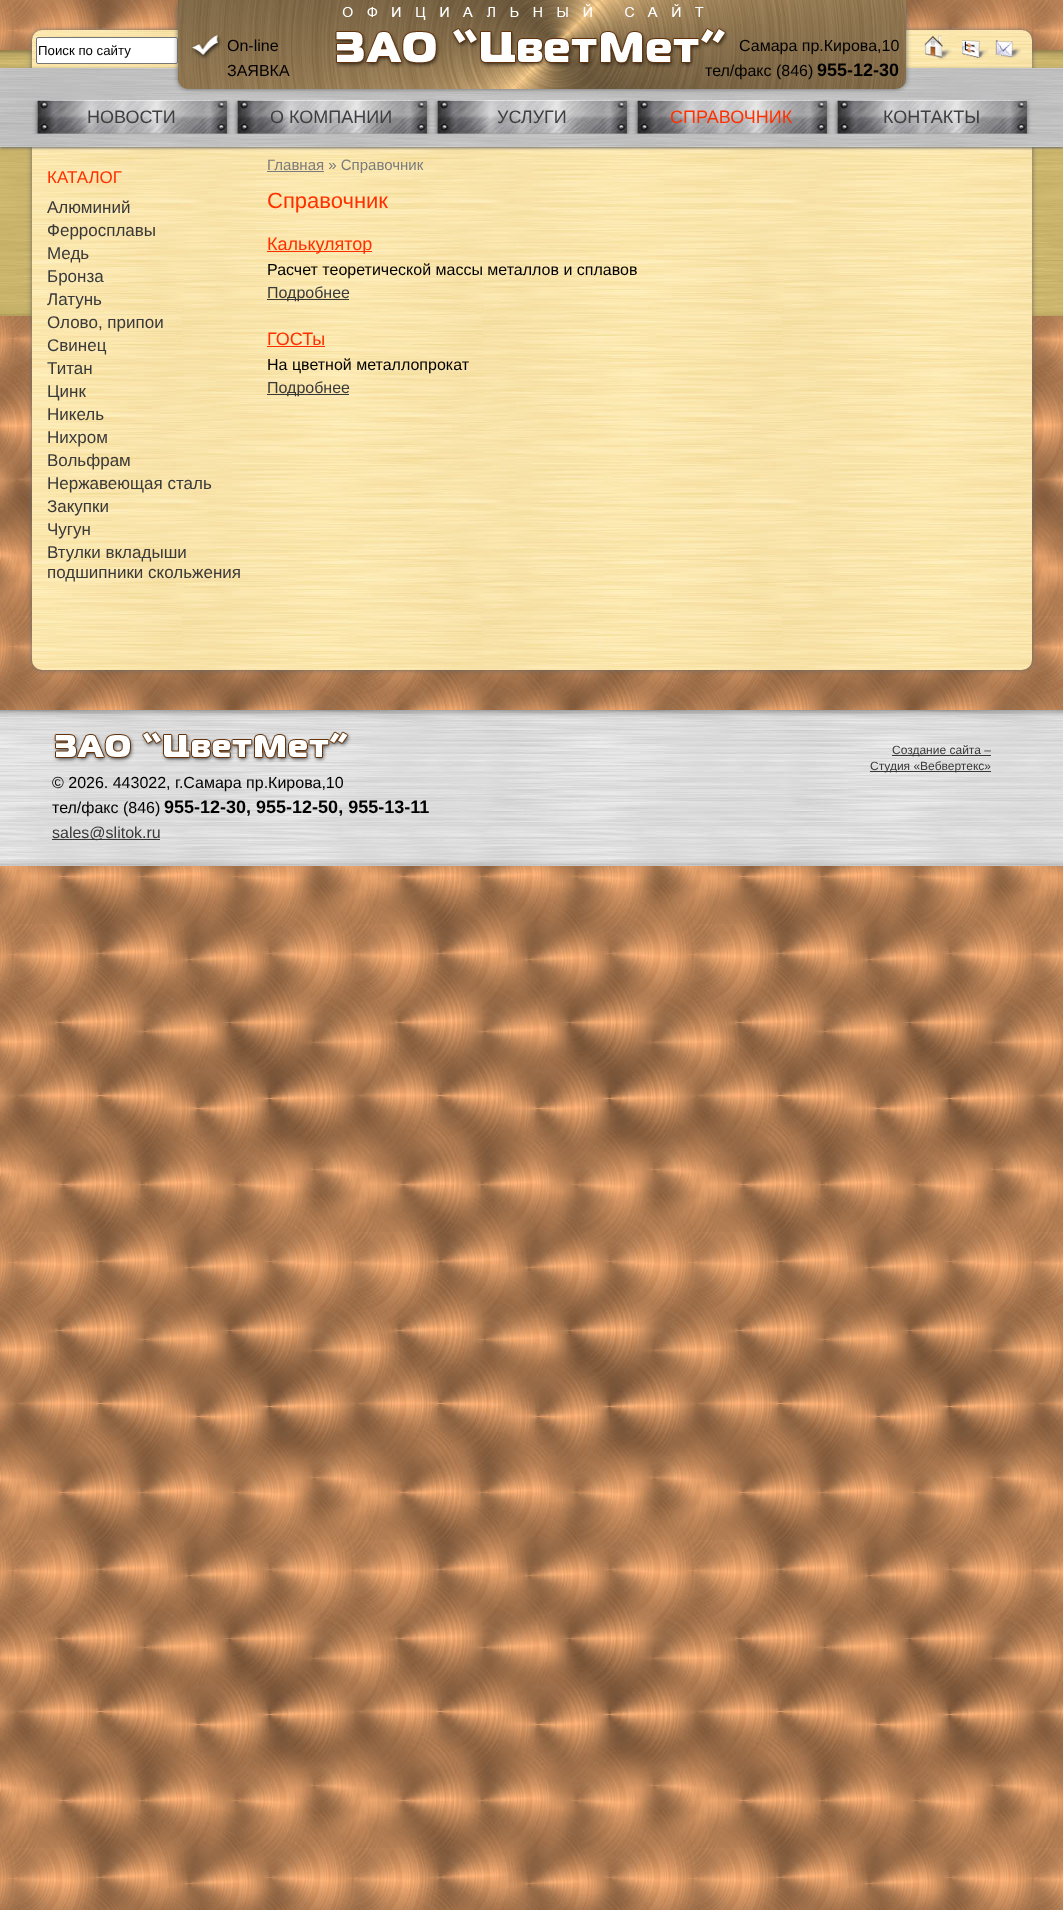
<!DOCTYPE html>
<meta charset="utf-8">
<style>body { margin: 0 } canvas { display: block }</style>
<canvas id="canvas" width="1063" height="1910"></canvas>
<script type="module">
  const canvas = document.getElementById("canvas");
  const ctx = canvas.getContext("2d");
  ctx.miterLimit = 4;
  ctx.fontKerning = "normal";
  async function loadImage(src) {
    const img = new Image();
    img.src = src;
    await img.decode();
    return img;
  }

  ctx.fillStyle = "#ffffff";
  ctx.fillRect(0, 0, 1063, 1910);
  ctx.drawImage(await loadImage("img1.png"), 0, 0, 1063, 1910);
  ctx.drawImage(await loadImage("img2.png"), 0, 50, 1063, 266);
  ctx.fillStyle = "#666666";
  ctx.filter = "blur(2.5px)";
  ctx.beginPath();
  ctx.roundRect(32, 30, 1000, 640, 10);
  ctx.fill();
  ctx.filter = "none";
  ctx.drawImage(await loadImage("img3.png"), 32, 30, 1000, 640);
  ctx.filter = "blur(1.5px)";
  ctx.beginPath();
  ctx.rect(0, 69, 1063, 79);
  ctx.fill();
  ctx.filter = "none";
  ctx.fillStyle = "#ffffff";
  ctx.beginPath();
  ctx.roundRect(36.5, 37.5, 141, 26, 1.5);
  ctx.fill();
  ctx.strokeStyle = "#767676";
  ctx.stroke();
  ctx.font = "13.25px Liberation Sans";
  ctx.fillStyle = "#000000";
  ctx.fillText("Поиск по сайту", 38, 55);
  ctx.drawImage(await loadImage("img11.png"), 0, 68, 1063, 79);
  ctx.fillStyle = "#666666";
  ctx.filter = "blur(2.5px)";
  ctx.beginPath();
  ctx.roundRect(178, 0, 728, 89, 10);
  ctx.fill();
  ctx.filter = "none";
  ctx.drawImage(await loadImage("img4.png"), 178, 0, 728, 89);
  ctx.drawImage(await loadImage("img5.png"), 191, 35, 31, 24);
  ctx.font = "16px Liberation Sans";
  ctx.fillStyle = "#000000";
  ctx.fillText("On-line", 227, 51);
  ctx.fillText("ЗАЯВКА", 227, 76);
  ctx.drawImage(await loadImage("img6.png"), 334, 4, 394, 64);
  ctx.fillText("Самара пр.Кирова,10", 739, 51);
  ctx.fillText("тел/факс (846)", 705, 76);
  ctx.font = "bold 18px Liberation Sans";
  ctx.fillText("955-12-30", 817, 76);
  ctx.drawImage(await loadImage("img7.png"), 924, 35, 28, 25);
  ctx.drawImage(await loadImage("img8.png"), 962, 40, 27, 19);
  ctx.drawImage(await loadImage("img9.png"), 995, 39, 26, 19);
  ctx.save();
  ctx.beginPath();
  ctx.rect(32, 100, 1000, 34);
  ctx.clip();
  ctx.fillStyle = "#666666";
  ctx.filter = "blur(2px)";
  ctx.beginPath();
  ctx.rect(37, 102, 190, 34);
  ctx.fill();
  ctx.filter = "none";
  ctx.restore();
  ctx.drawImage(await loadImage("img10.png"), 37, 100, 190, 34);
  ctx.font = "18px Liberation Sans";
  ctx.fillStyle = "#3e3d40";
  ctx.fillText("НОВОСТИ", 87, 123);
  ctx.save();
  ctx.beginPath();
  ctx.rect(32, 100, 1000, 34);
  ctx.clip();
  ctx.fillStyle = "#666666";
  ctx.filter = "blur(2px)";
  ctx.beginPath();
  ctx.rect(237, 102, 190, 34);
  ctx.fill();
  ctx.filter = "none";
  ctx.restore();
  ctx.drawImage(await loadImage("img10.png"), 237, 100, 190, 34);
  ctx.fillText("О КОМПАНИИ", 270, 123);
  ctx.save();
  ctx.beginPath();
  ctx.rect(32, 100, 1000, 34);
  ctx.clip();
  ctx.fillStyle = "#666666";
  ctx.filter = "blur(2px)";
  ctx.beginPath();
  ctx.rect(437, 102, 190, 34);
  ctx.fill();
  ctx.filter = "none";
  ctx.restore();
  ctx.drawImage(await loadImage("img10.png"), 437, 100, 190, 34);
  ctx.fillText("УСЛУГИ", 497, 123);
  ctx.save();
  ctx.beginPath();
  ctx.rect(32, 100, 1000, 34);
  ctx.clip();
  ctx.fillStyle = "#666666";
  ctx.filter = "blur(2px)";
  ctx.beginPath();
  ctx.rect(637, 102, 190, 34);
  ctx.fill();
  ctx.filter = "none";
  ctx.restore();
  ctx.drawImage(await loadImage("img10.png"), 637, 100, 190, 34);
  ctx.fillStyle = "#ff3000";
  ctx.fillText("СПРАВОЧНИК", 670, 123);
  ctx.save();
  ctx.beginPath();
  ctx.rect(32, 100, 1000, 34);
  ctx.clip();
  ctx.fillStyle = "#666666";
  ctx.filter = "blur(2px)";
  ctx.beginPath();
  ctx.rect(837, 102, 190, 34);
  ctx.fill();
  ctx.filter = "none";
  ctx.restore();
  ctx.drawImage(await loadImage("img10.png"), 837, 100, 190, 34);
  ctx.fillStyle = "#3e3d40";
  ctx.fillText("КОНТАКТЫ", 883, 123);
  ctx.font = "17px Liberation Sans";
  ctx.fillStyle = "#ff3000";
  ctx.fillText("КАТАЛОГ", 47, 183);
  ctx.fillStyle = "#393939";
  ctx.fillText("Алюминий", 47, 213);
  ctx.fillText("Ферросплавы", 47, 236);
  ctx.fillText("Медь", 47, 259);
  ctx.fillText("Бронза", 47, 282);
  ctx.fillText("Латунь", 47, 305);
  ctx.fillText("Олово, припои", 47, 328);
  ctx.fillText("Свинец", 47, 351);
  ctx.fillText("Титан", 47, 374);
  ctx.fillText("Цинк", 47, 397);
  ctx.fillText("Никель", 47, 420);
  ctx.fillText("Нихром", 47, 443);
  ctx.fillText("Вольфрам", 47, 466);
  ctx.fillText("Нержавеющая сталь", 47, 489);
  ctx.fillText("Закупки", 47, 512);
  ctx.fillText("Чугун", 47, 535);
  ctx.fillText("Втулки вкладыши", 47, 558);
  ctx.fillText("подшипники скольжения", 47, 578);
  ctx.fillStyle = "#7b7b7b";
  ctx.fillRect(267, 171, 57, 1);
  ctx.font = "15px Liberation Sans";
  ctx.fillText("Главная » Справочник", 267, 170);
  ctx.font = "22px Liberation Sans";
  ctx.fillStyle = "#ff3000";
  ctx.fillText("Справочник", 267, 208);
  ctx.fillRect(267, 251, 105, 1);
  ctx.font = "18px Liberation Sans";
  ctx.fillText("Калькулятор", 267, 250);
  ctx.font = "16px Liberation Sans";
  ctx.fillStyle = "#000000";
  ctx.fillText("Расчет теоретической массы металлов и сплавов", 267, 275);
  ctx.fillStyle = "#393939";
  ctx.fillRect(267, 299, 82, 1);
  ctx.fillText("Подробнее", 267, 298);
  ctx.font = "18px Liberation Sans";
  ctx.fillStyle = "#ff3000";
  ctx.fillText("ГОСТы", 267, 345);
  ctx.fillRect(267, 346, 58, 1);
  ctx.font = "16px Liberation Sans";
  ctx.fillStyle = "#000000";
  ctx.fillText("На цветной металлопрокат", 267, 370);
  ctx.fillStyle = "#393939";
  ctx.fillRect(267, 394, 82, 1);
  ctx.fillText("Подробнее", 267, 393);
  ctx.drawImage(await loadImage("img12.png"), 0, 710, 1063, 156);
  ctx.fillRect(892, 755, 99, 1);
  ctx.font = "12px Liberation Sans";
  ctx.fillText("Создание сайта –", 892, 754);
  ctx.fillRect(870, 771, 121, 1);
  ctx.fillText("Студия «Вебвертекс»", 870, 770);
  ctx.drawImage(await loadImage("img13.png"), 53, 731, 298, 32);
  ctx.font = "16px Liberation Sans";
  ctx.fillStyle = "#000000";
  ctx.fillText("© 2026. 443022, г.Самара пр.Кирова,10", 52, 788);
  ctx.fillText("тел/факс (846)", 52, 813);
  ctx.font = "bold 18px Liberation Sans";
  ctx.fillText("955-12-30, 955-12-50, 955-13-11", 164, 813);
  ctx.fillStyle = "#393939";
  ctx.fillRect(52, 839, 108, 1);
  ctx.font = "16px Liberation Sans";
  ctx.fillText("sales@slitok.ru", 52, 838);
</script>
